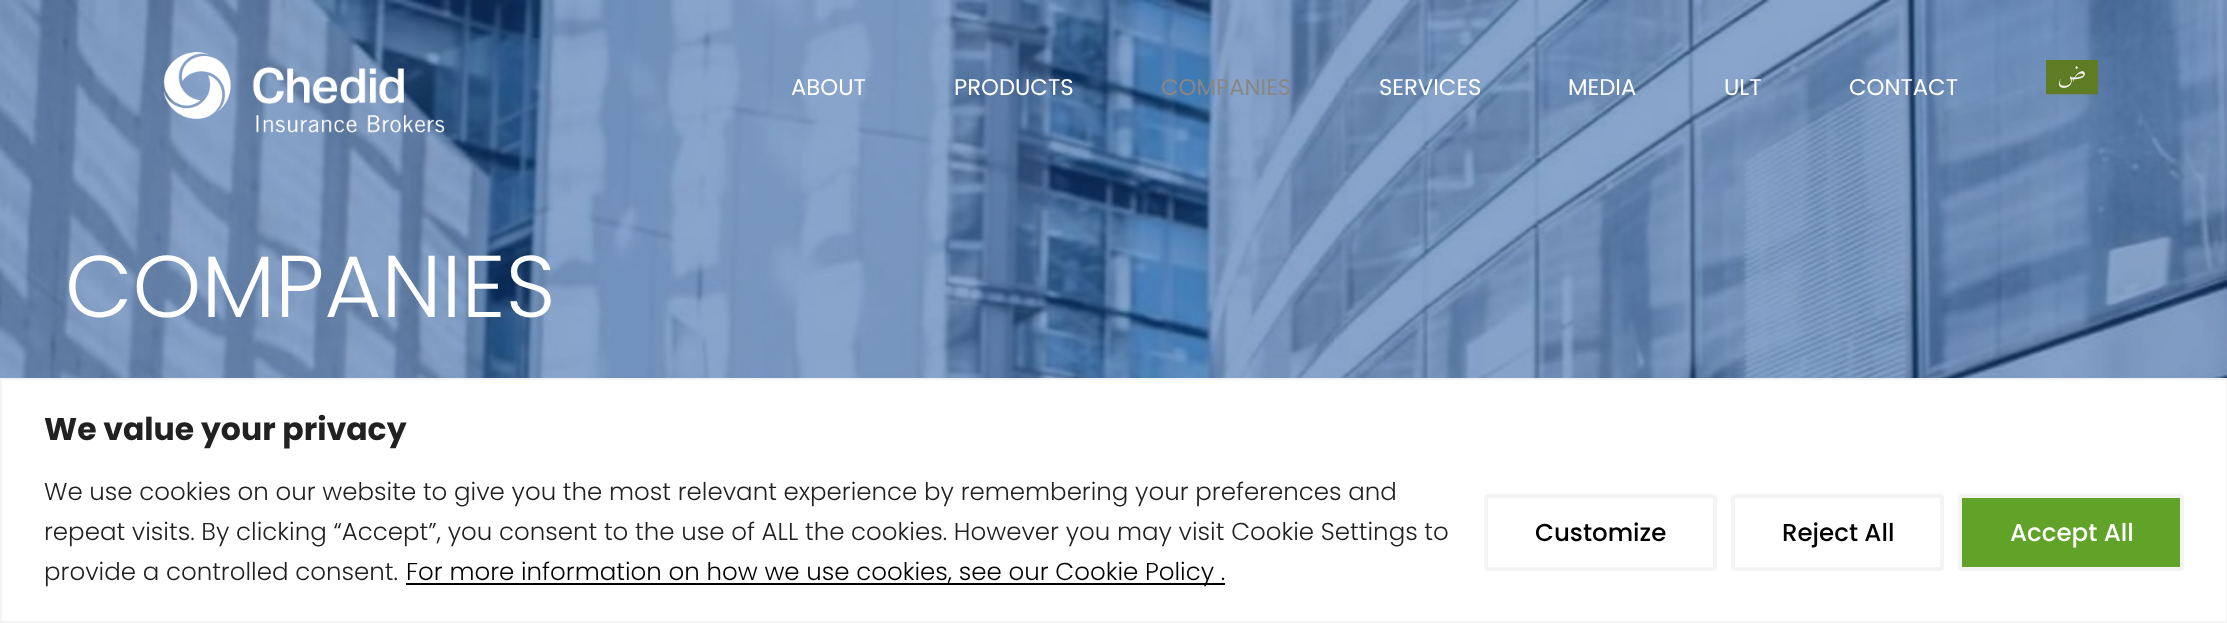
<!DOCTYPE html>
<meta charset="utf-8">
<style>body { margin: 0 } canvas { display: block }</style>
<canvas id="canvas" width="2227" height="623"></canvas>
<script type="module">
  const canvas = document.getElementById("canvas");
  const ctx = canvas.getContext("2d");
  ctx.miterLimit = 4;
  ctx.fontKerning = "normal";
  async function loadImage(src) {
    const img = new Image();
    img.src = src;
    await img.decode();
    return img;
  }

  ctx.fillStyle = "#ffffff";
  ctx.fillRect(0, 0, 2227, 623);
  ctx.drawImage(await loadImage("img3.png"), 0, 0, 2227, 378);
  ctx.drawImage(await loadImage("img1.png"), 163, 52, 282, 81);
  ctx.font = "22.75px Poppins";
  ctx.fillText("ABOUT", 791, 95);
  ctx.fillText("PRODUCTS", 954, 95);
  ctx.fillStyle = "#878787";
  ctx.fillText("COMPANIES", 1161, 95);
  ctx.fillStyle = "#ffffff";
  ctx.fillText("SERVICES", 1379, 95);
  ctx.fillText("MEDIA", 1568, 95);
  ctx.fillText("ULT", 1724, 95);
  ctx.fillText("CONTACT", 1849, 95);
  ctx.drawImage(await loadImage("img2.png"), 2046, 60, 52, 35);
  ctx.font = "300 87.5px Poppins";
  ctx.fillText("COMPANIES", 65, 317);
  ctx.strokeStyle = "#f4f4f4";
  ctx.lineWidth = 2;
  ctx.strokeRect(1, 379, 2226, 243);
  ctx.font = "bold 31.5px Poppins";
  ctx.fillStyle = "#212121";
  ctx.fillText("We value your privacy", 44, 440);
  ctx.font = "300 24.5px Poppins";
  ctx.fillText("We use cookies on our website to give you the most relevant experience by remembering your preferences and", 44, 500);
  ctx.fillText("repeat visits. By clicking “Accept”, you consent to the use of ALL the cookies. However you may visit Cookie Settings to", 44, 540);
  ctx.fillText("provide a controlled consent.", 44, 580);
  ctx.fillStyle = "#000000";
  ctx.fillRect(406, 583, 819, 2);
  ctx.fillText("For more information on how we use cookies, see our Cookie Policy .", 406, 580);
  ctx.beginPath();
  ctx.roundRect(1486, 496, 229, 73, 2);
  ctx.lineWidth = 4;
  ctx.stroke();
  ctx.font = "500 24.5px Poppins";
  ctx.fillText("Customize", 1535, 541);
  ctx.beginPath();
  ctx.roundRect(1733, 496, 209, 73, 2);
  ctx.stroke();
  ctx.fillText("Reject All", 1782, 541);
  ctx.fillStyle = "#61a229";
  ctx.beginPath();
  ctx.roundRect(1960, 496, 222, 73, 2);
  ctx.fill();
  ctx.stroke();
  ctx.fillStyle = "#ffffff";
  ctx.fillText("Accept All", 2010, 541);
</script>
